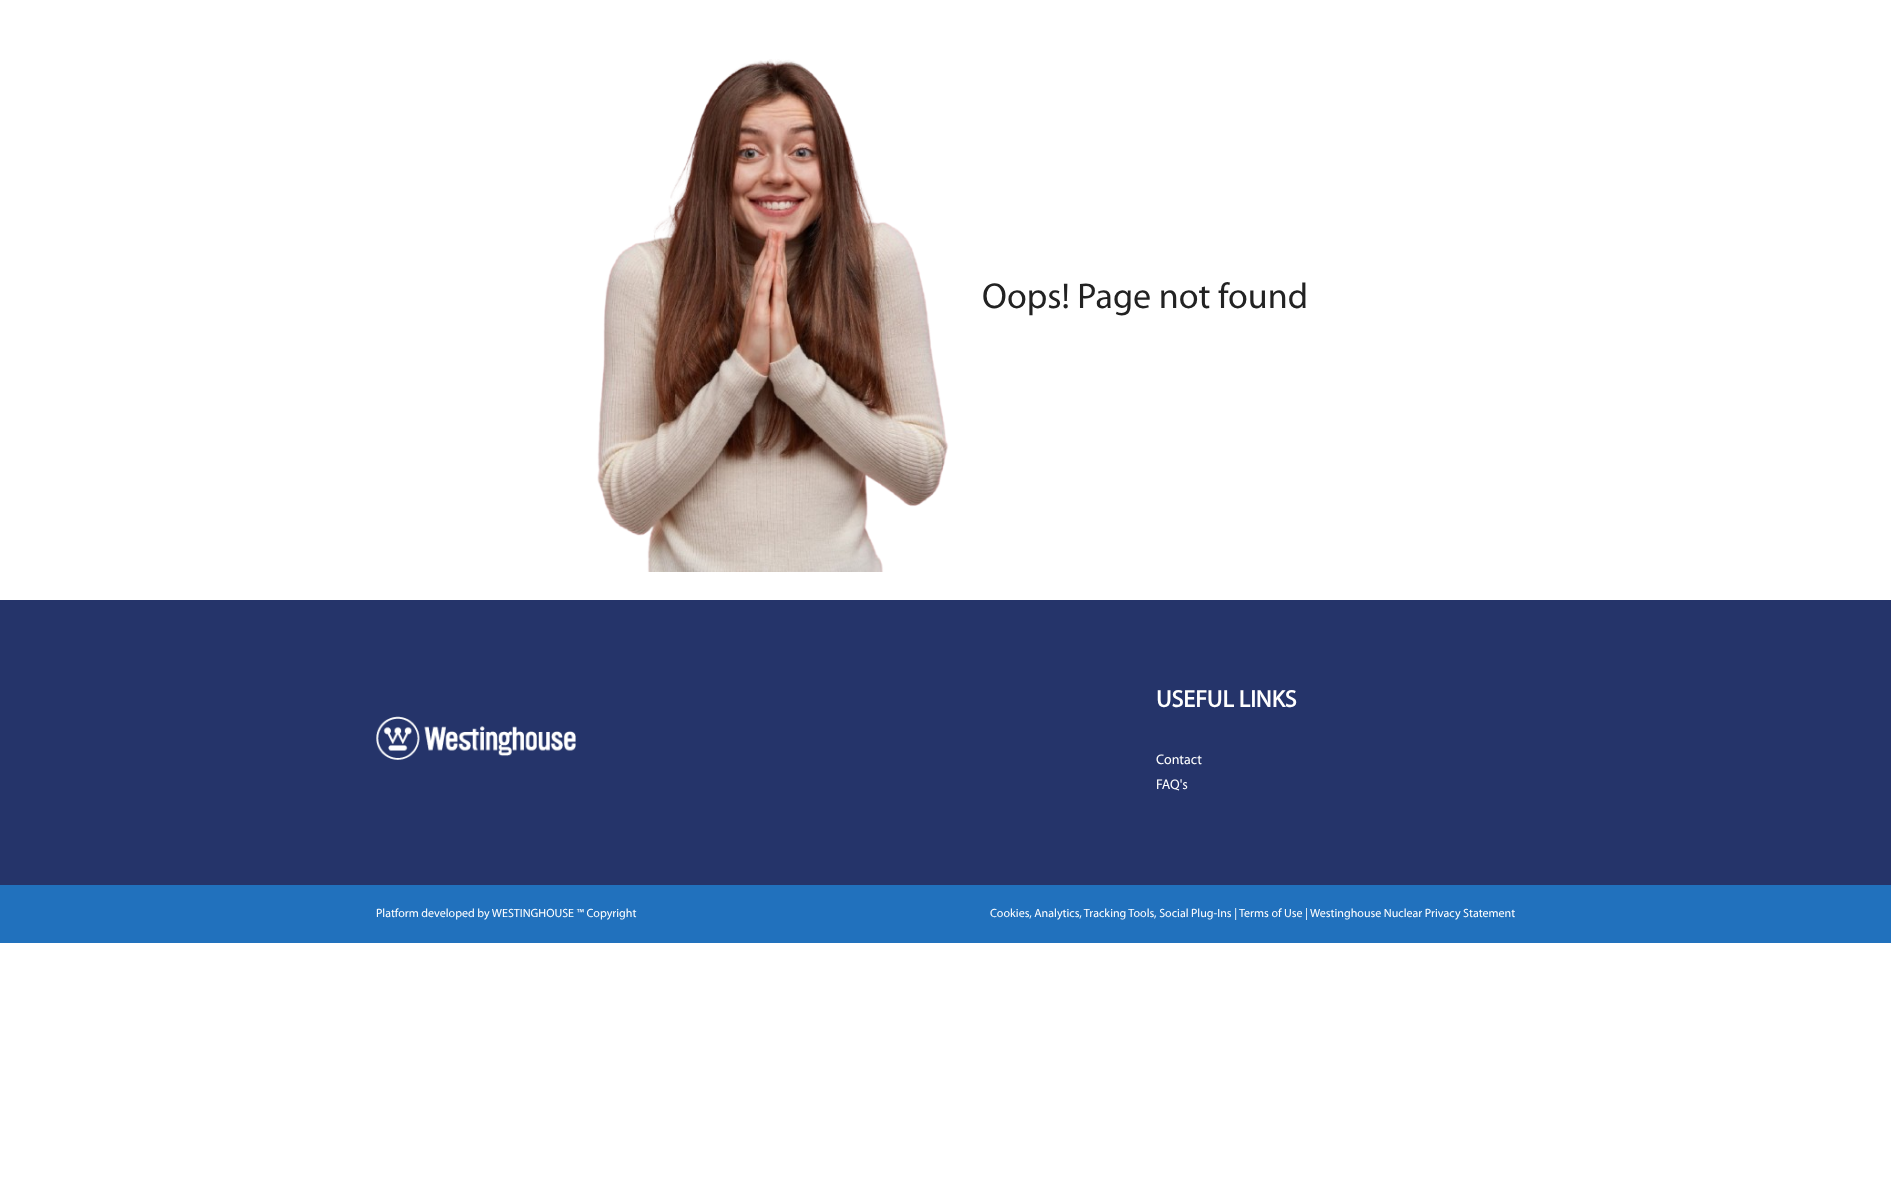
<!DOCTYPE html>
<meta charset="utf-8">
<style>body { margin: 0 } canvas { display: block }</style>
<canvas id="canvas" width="1891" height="1200"></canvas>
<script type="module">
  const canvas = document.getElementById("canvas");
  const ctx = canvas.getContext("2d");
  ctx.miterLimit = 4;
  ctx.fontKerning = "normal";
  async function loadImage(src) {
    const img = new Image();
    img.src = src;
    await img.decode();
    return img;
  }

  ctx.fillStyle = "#ffffff";
  ctx.fillRect(0, 0, 1891, 1200);
  ctx.drawImage(await loadImage("img1.png"), 597, 59, 352, 513);
  ctx.font = "36px Myriad";
  ctx.fillStyle = "#222222";
  ctx.fillText("Oops! Page not found", 982, 308);
  ctx.fillStyle = "#25346a";
  ctx.fillRect(0, 600, 1891, 285);
  ctx.drawImage(await loadImage("img2.png"), 376, 716, 200, 44);
  ctx.font = "bold 24px Myriad";
  ctx.fillStyle = "#ffffff";
  ctx.fillText("USEFUL LINKS", 1156, 707);
  ctx.font = "14px Myriad";
  ctx.fillText("Contact", 1156, 764);
  ctx.fillText("FAQ's", 1156, 789);
  ctx.fillStyle = "#2171bd";
  ctx.fillRect(0, 885, 1891, 58);
  ctx.font = "12px Myriad";
  ctx.fillStyle = "#ffffff";
  ctx.fillText("Platform developed by WESTINGHOUSE ™ Copyright", 376, 917);
  ctx.fillText("Cookies, Analytics, Tracking Tools, Social Plug-Ins |", 990, 917);
  ctx.fillText("Terms of Use |", 1239, 917);
  ctx.fillText("Westinghouse Nuclear Privacy Statement", 1310, 917);
</script>
